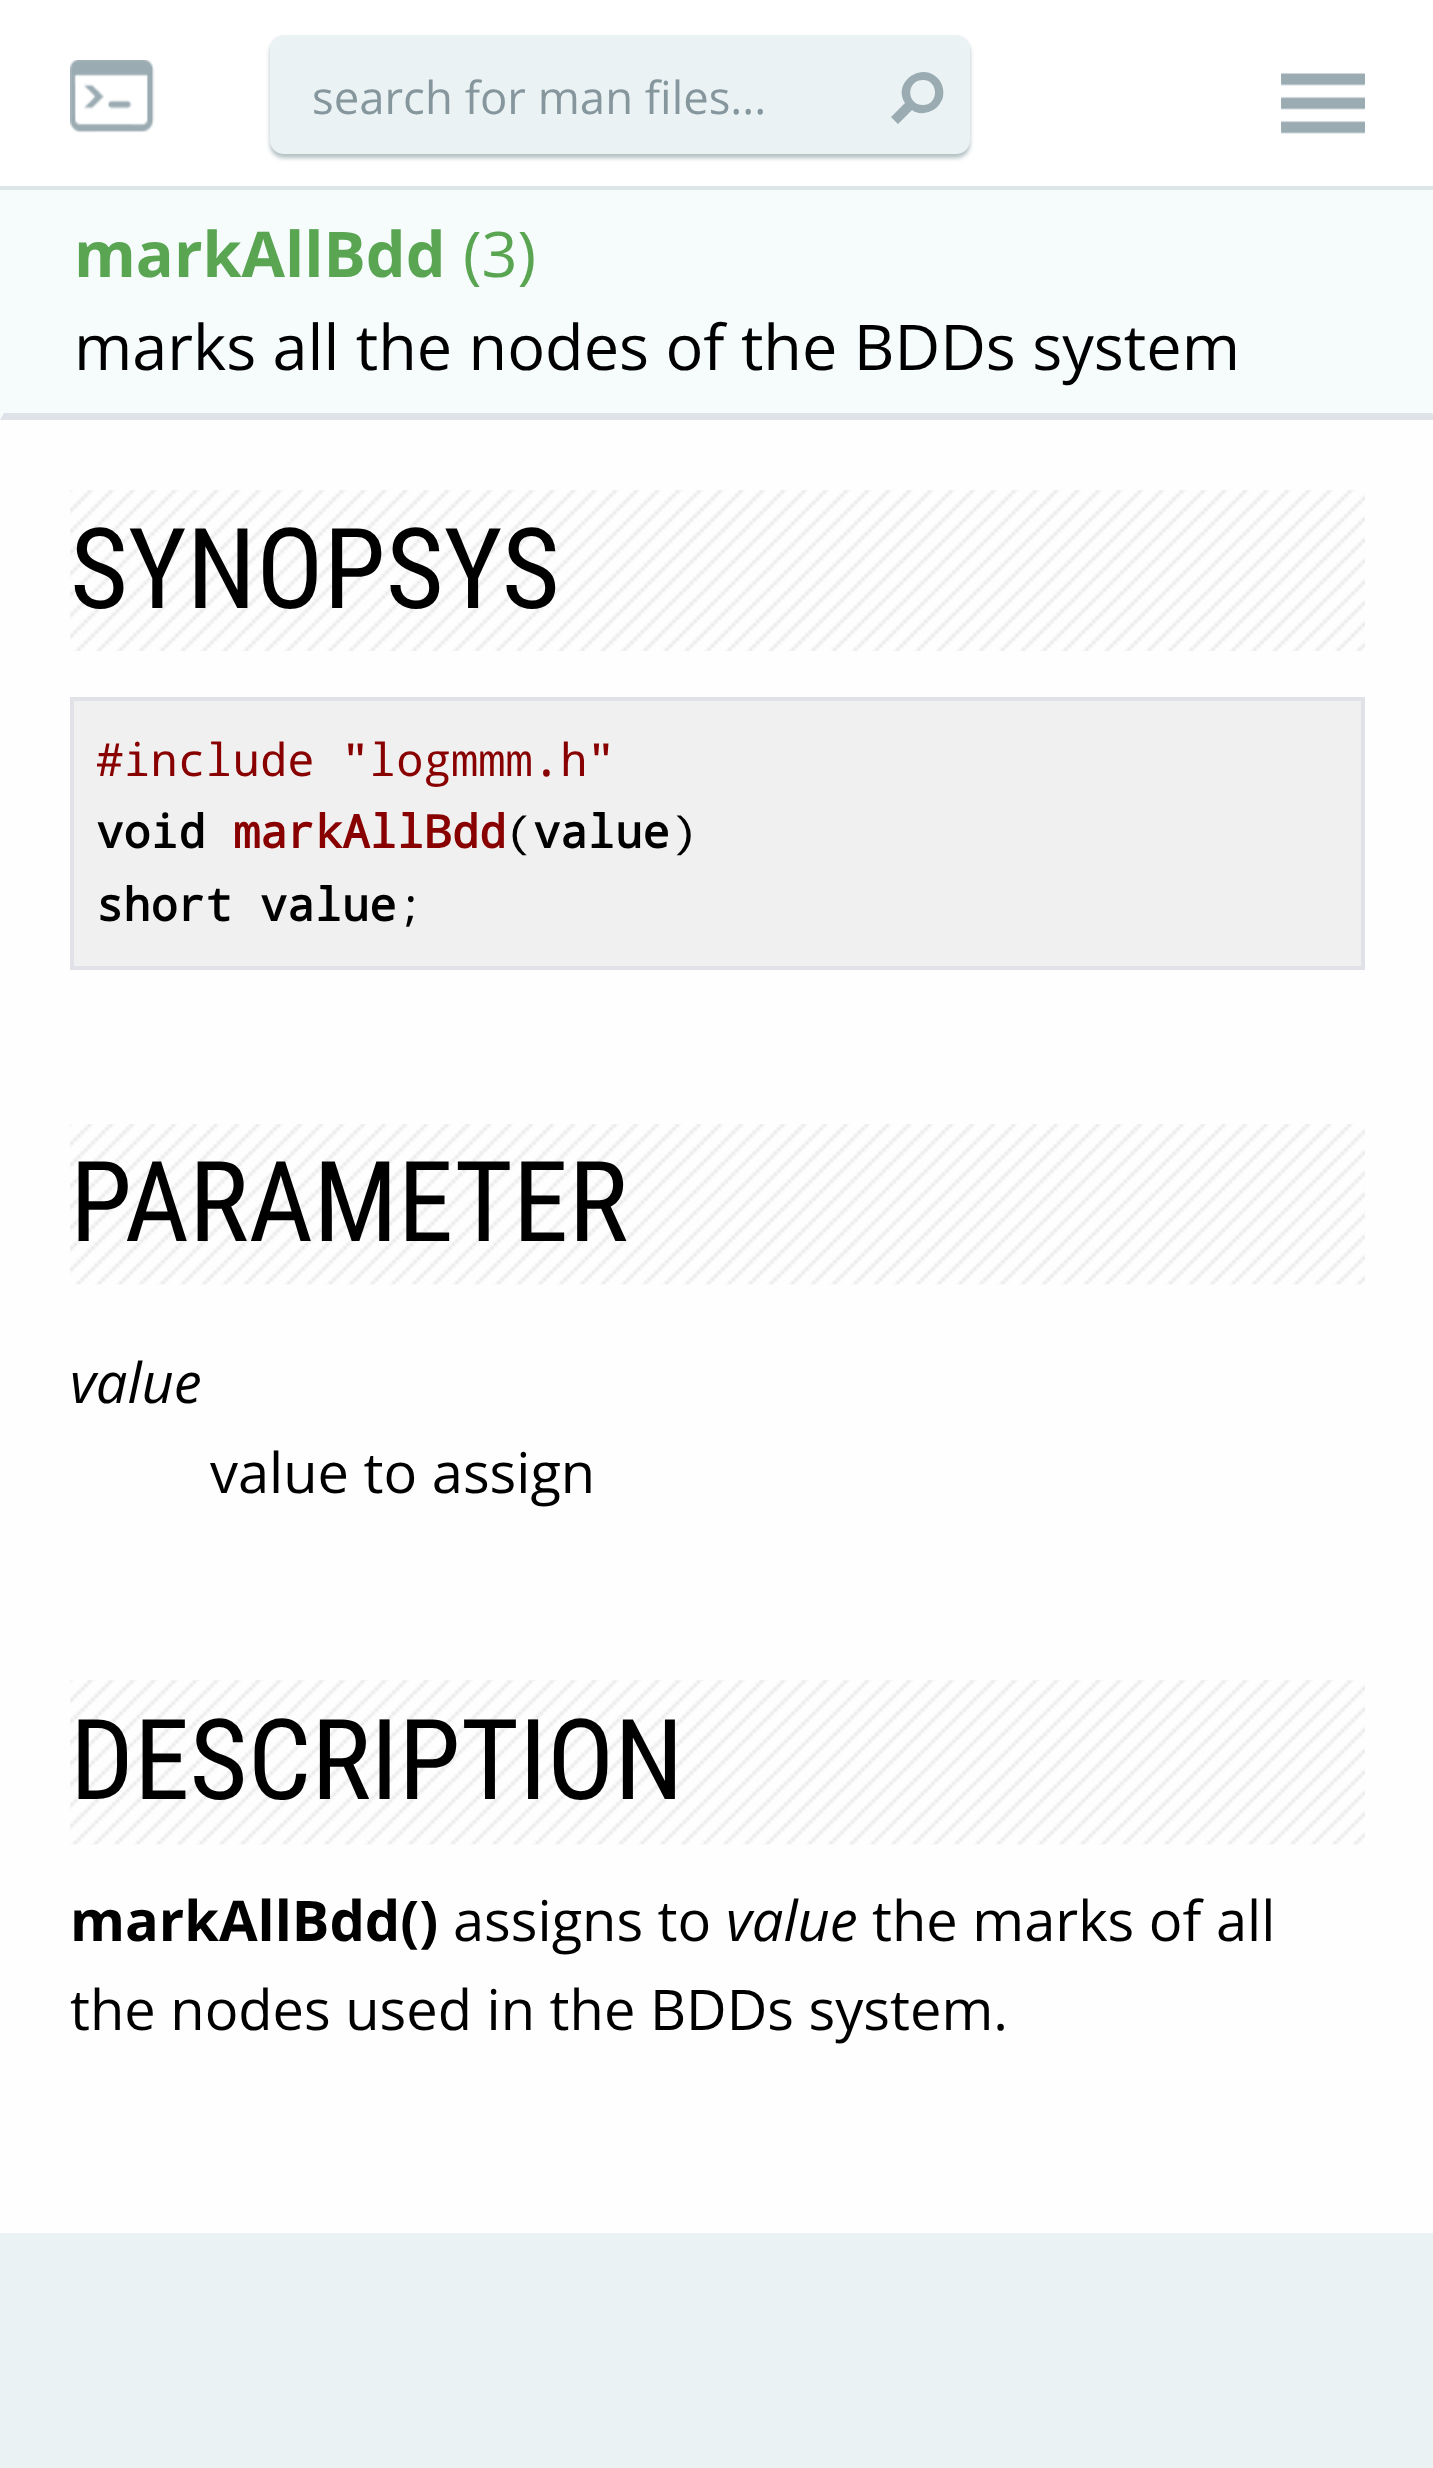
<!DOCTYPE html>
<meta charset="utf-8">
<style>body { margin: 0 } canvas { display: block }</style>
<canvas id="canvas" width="1433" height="2468"></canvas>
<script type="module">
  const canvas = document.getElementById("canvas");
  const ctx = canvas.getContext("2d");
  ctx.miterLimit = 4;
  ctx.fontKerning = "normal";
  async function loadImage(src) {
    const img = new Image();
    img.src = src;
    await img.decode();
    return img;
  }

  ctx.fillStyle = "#eaf2f4";
  ctx.fillRect(0, 0, 1433, 2468);
  ctx.fillStyle = "#ffffff";
  ctx.fillRect(0, 0, 1433, 186);
  ctx.fillStyle = "#dce5e7";
  ctx.fillRect(0, 186, 1433, 4);
  ctx.drawImage(await loadImage("img1.png"), 70, 60, 85, 73);
  ctx.fillStyle = "rgba(6, 47, 55, 0.3)";
  ctx.filter = "blur(2px)";
  ctx.beginPath();
  ctx.roundRect(270, 39, 700, 119, 14);
  ctx.fill();
  ctx.filter = "none";
  ctx.fillStyle = "#eaf2f4";
  ctx.beginPath();
  ctx.roundRect(270, 35, 700, 119, 14);
  ctx.fill();
  ctx.font = "45.5px Open Sans";
  ctx.fillStyle = "#86969d";
  ctx.fillText("search for man files...", 312, 114);
  ctx.fillStyle = "#9aabb2";
  ctx.beginPath();
  ctx.moveTo(898, 124);
  ctx.lineTo(912, 110);
  ctx.bezierCurveTo(917, 114, 924, 114, 931, 111);
  ctx.bezierCurveTo(937, 109, 941, 103, 943, 97);
  ctx.bezierCurveTo(944, 91, 943, 86, 940, 81);
  ctx.bezierCurveTo(925, 59, 891, 81, 905, 103);
  ctx.lineTo(891, 117);
  ctx.closePath();
  ctx.moveTo(923, 105);
  ctx.bezierCurveTo(906, 105, 906, 80, 923, 80);
  ctx.bezierCurveTo(939, 80, 939, 105, 923, 105);
  ctx.closePath();
  ctx.fill();
  ctx.drawImage(await loadImage("img2.png"), 1281, 73, 84, 61);
  ctx.fillStyle = "#fefefe";
  ctx.fillRect(0, 420, 1433, 1813);
  ctx.fillStyle = "#f6fbfc";
  ctx.fillRect(0, 190, 1433, 230);
  ctx.fillStyle = "#dfe3e9";
  ctx.beginPath();
  ctx.moveTo(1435, 420);
  ctx.lineTo(0, 420);
  ctx.lineTo(4, 413);
  ctx.lineTo(1432, 413);
  ctx.closePath();
  ctx.fill();
  ctx.font = "bold 63px Open Sans";
  ctx.fillStyle = "#59a552";
  ctx.fillText("markAllBdd", 74, 277);
  ctx.font = "63px Open Sans";
  ctx.fillText("(3)", 463, 277);
  ctx.fillStyle = "#000000";
  ctx.fillText("marks all the nodes of the BDDs system", 74, 370);
  ctx.drawImage(await loadImage("img3.png"), 70, 490, 1295, 161);
  ctx.font = "112px Roboto Condensed";
  ctx.fillText("SYNOPSYS", 70, 608);
  ctx.fillStyle = "#f0f0f0";
  ctx.beginPath();
  ctx.rect(72, 699, 1291, 269);
  ctx.fill();
  ctx.strokeStyle = "#e1e1e8";
  ctx.lineWidth = 4;
  ctx.stroke();
  ctx.font = "45.5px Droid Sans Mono";
  ctx.fillStyle = "#880000";
  ctx.fillText("#include \"logmmm.h\"", 96, 776);
  ctx.font = "bold 45.5px Droid Sans Mono";
  ctx.fillStyle = "#000000";
  ctx.fillText("void", 96, 848);
  ctx.fillStyle = "#880000";
  ctx.fillText("markAllBdd", 233, 848);
  ctx.font = "45.5px Droid Sans Mono";
  ctx.fillStyle = "#000000";
  ctx.fillText("(", 506, 848);
  ctx.font = "bold 45.5px Droid Sans Mono";
  ctx.fillText("value", 533, 848);
  ctx.font = "45.5px Droid Sans Mono";
  ctx.fillText(")", 670, 848);
  ctx.font = "bold 45.5px Droid Sans Mono";
  ctx.fillText("short value", 96, 921);
  ctx.font = "45.5px Droid Sans Mono";
  ctx.fillText(";", 397, 921);
  ctx.drawImage(await loadImage("img4.png"), 70, 1124, 1295, 161);
  ctx.font = "112px Roboto Condensed";
  ctx.fillText("PARAMETER", 70, 1241);
  ctx.font = "italic 56px Open Sans";
  ctx.fillText("value", 70, 1403);
  ctx.font = "56px Open Sans";
  ctx.fillText("value to assign", 210, 1493);
  ctx.drawImage(await loadImage("img5.png"), 70, 1680, 1295, 165);
  ctx.font = "112px Roboto Condensed";
  ctx.fillText("DESCRIPTION", 70, 1799);
  ctx.font = "bold 56px Open Sans";
  ctx.fillText("markAllBdd()", 70, 1941);
  ctx.font = "56px Open Sans";
  ctx.fillText("assigns to", 453, 1941);
  ctx.font = "italic 56px Open Sans";
  ctx.fillText("value", 726, 1941);
  ctx.font = "56px Open Sans";
  ctx.fillText("the marks of all", 872, 1941);
  ctx.fillText("the nodes used in the BDDs system.", 70, 2030);
</script>
